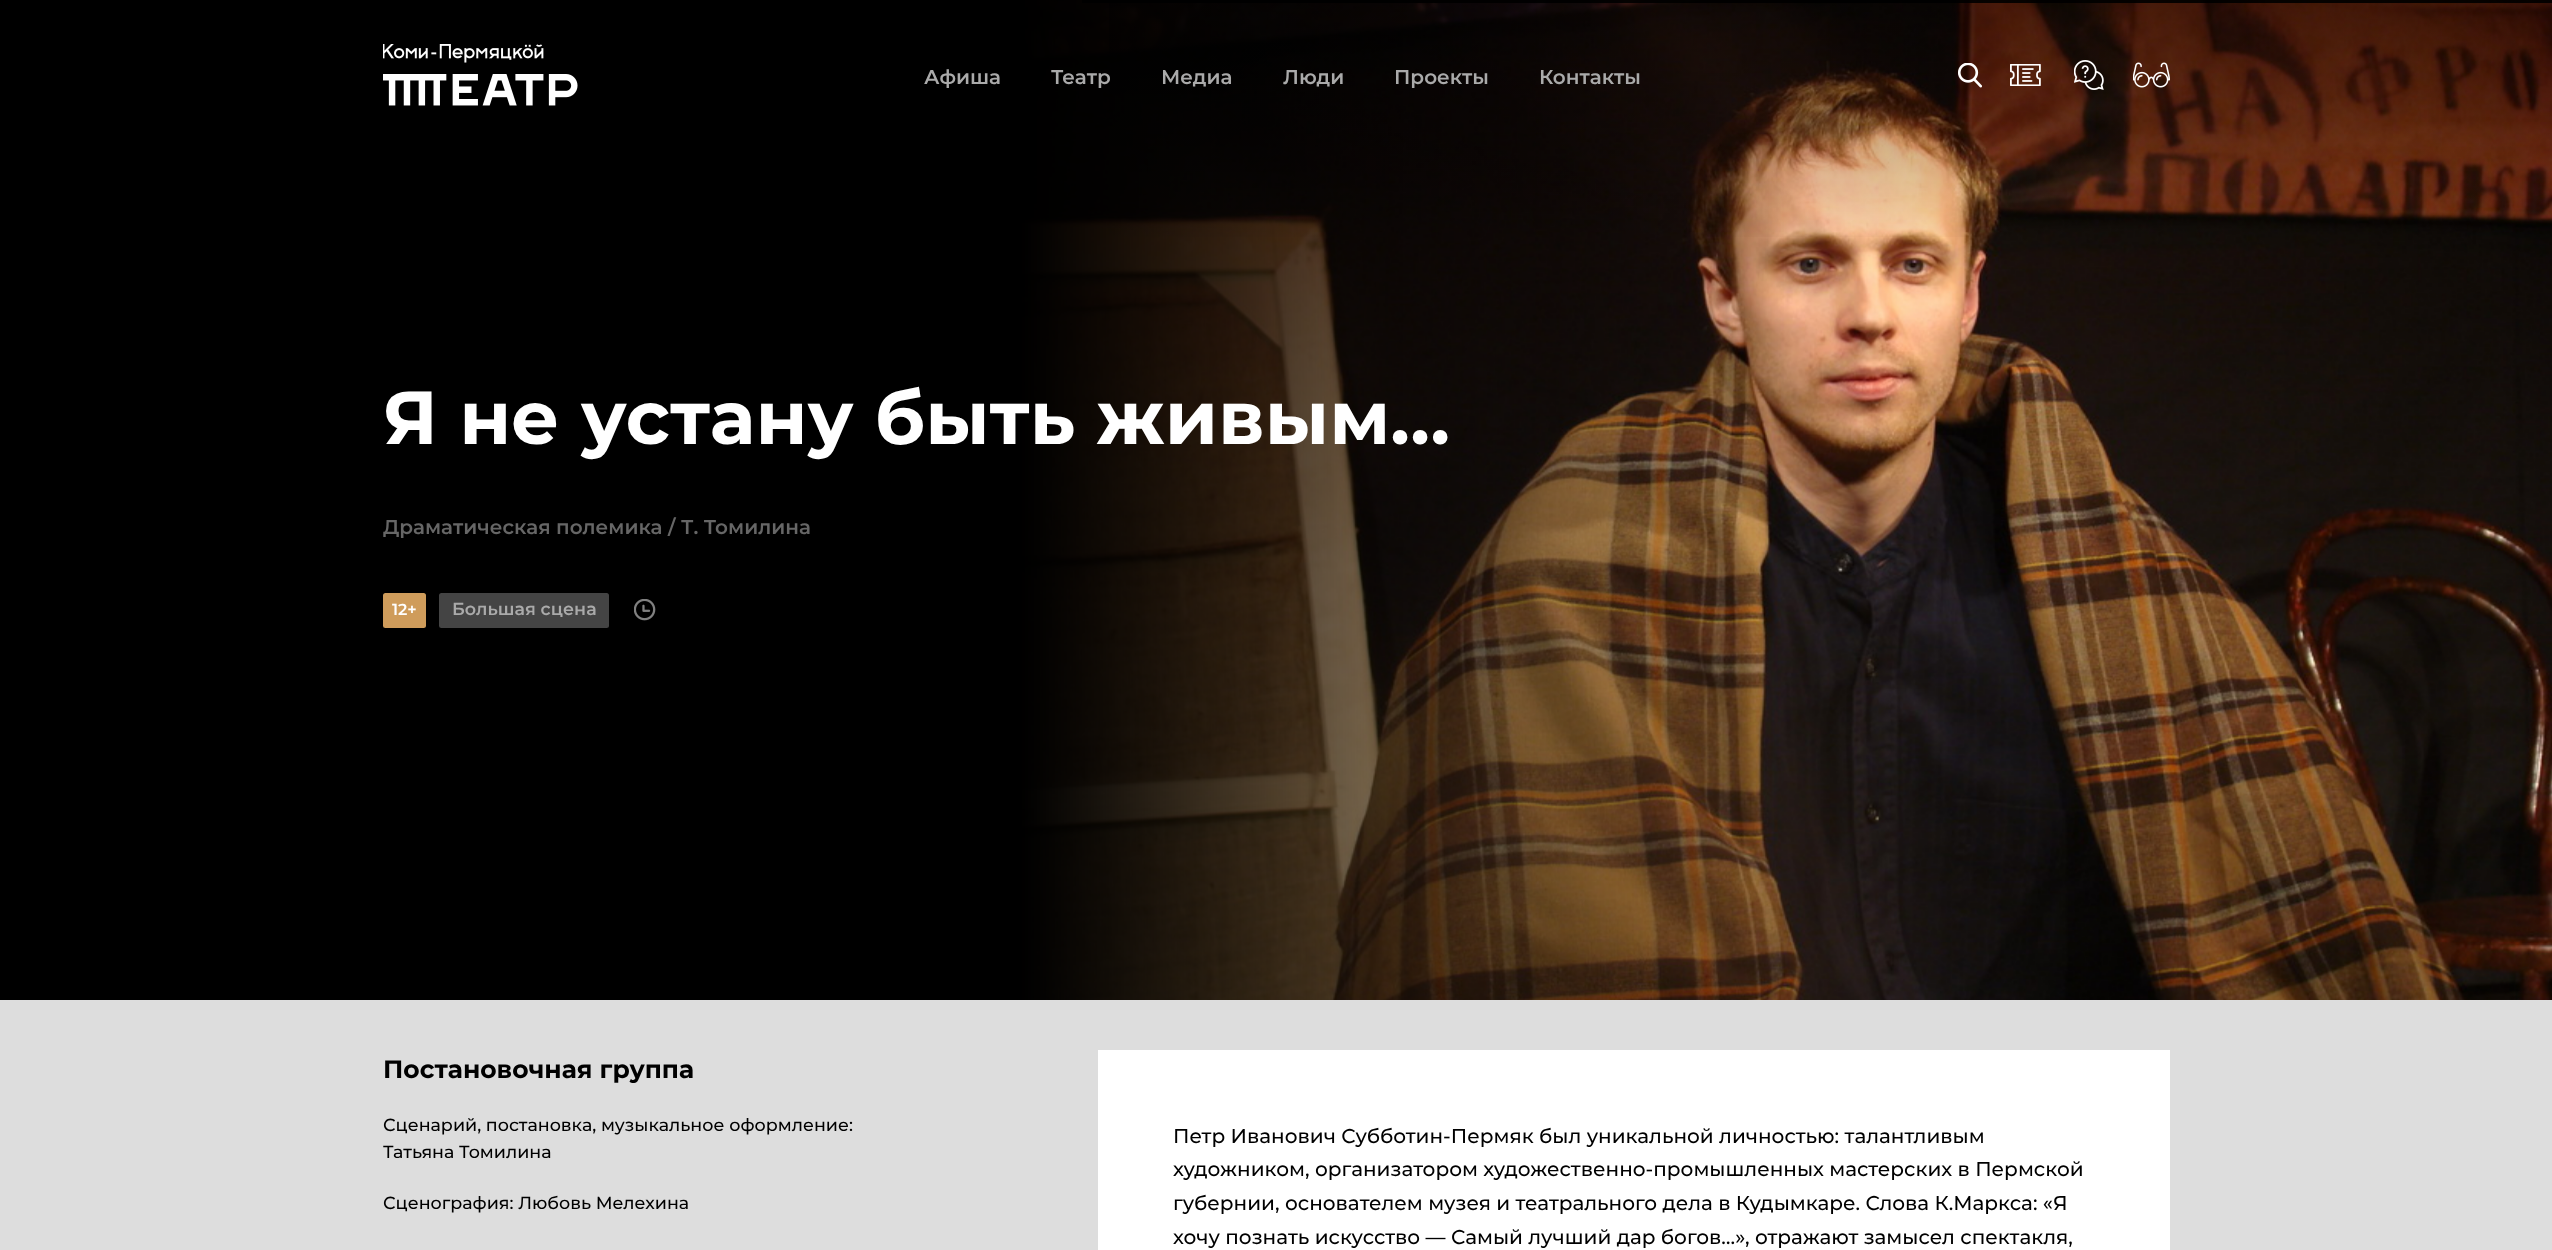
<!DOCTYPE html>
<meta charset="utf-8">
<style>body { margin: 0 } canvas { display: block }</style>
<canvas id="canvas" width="2552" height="1250"></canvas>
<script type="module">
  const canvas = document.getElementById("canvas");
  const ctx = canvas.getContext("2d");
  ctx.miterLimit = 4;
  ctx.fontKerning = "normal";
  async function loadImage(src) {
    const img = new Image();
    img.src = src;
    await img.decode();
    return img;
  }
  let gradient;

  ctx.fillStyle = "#000000";
  ctx.fillRect(0, 0, 2552, 1250);
  ctx.drawImage(await loadImage("img1.png"), 1021, 0, 1531, 1000);
  gradient = ctx.createLinearGradient(1276, 0, 1276, 250);
  gradient.addColorStop(0, "rgba(0, 0, 0, 0.4)");
  gradient.addColorStop(1, "rgba(0, 0, 0, 0)");
  ctx.fillStyle = gradient;
  ctx.fillRect(1109, 0, 1443, 237);
  ctx.fillStyle = "rgba(0, 0, 0, 0.9)";
  ctx.fillRect(1082, 0, 1470, 3);
  ctx.drawImage(await loadImage("img2.png"), 383, 44, 195, 62);
  ctx.font = "600 20px Montserrat";
  ctx.fillStyle = "#aaaaaa";
  ctx.fillText("Афиша", 924, 84);
  ctx.fillText("Театр", 1051, 84);
  ctx.fillText("Медиа", 1161, 84);
  ctx.fillText("Люди", 1283, 84);
  ctx.fillText("Проекты", 1394, 84);
  ctx.fillText("Контакты", 1539, 84);
  ctx.drawImage(await loadImage("img3.png"), 1958, 63, 24, 25);
  ctx.drawImage(await loadImage("img4.png"), 2010, 64, 31, 22);
  ctx.drawImage(await loadImage("img5.png"), 2074, 60, 30, 30);
  ctx.drawImage(await loadImage("img6.png"), 2133, 62, 37, 26);
  ctx.font = "bold 75px Montserrat";
  ctx.fillStyle = "#ffffff";
  ctx.fillText("Я не устану быть живым…", 383, 444);
  ctx.font = "600 20px Montserrat";
  ctx.fillStyle = "#666666";
  ctx.fillText("Драматическая полемика / Т. Томилина", 383, 534);
  ctx.fillStyle = "#cf9c5b";
  ctx.beginPath();
  ctx.roundRect(383, 593, 43, 35, 2.5);
  ctx.fill();
  ctx.font = "600 16px Montserrat";
  ctx.fillStyle = "#ffffff";
  ctx.fillText("12+", 392, 615);
  ctx.fillStyle = "#444444";
  ctx.beginPath();
  ctx.roundRect(439, 593, 170, 35, 2.5);
  ctx.fill();
  ctx.font = "600 17.5px Montserrat";
  ctx.fillStyle = "#aaaaaa";
  ctx.fillText("Большая сцена", 452, 615);
  ctx.drawImage(await loadImage("img7.png"), 634, 599, 22, 22);
  ctx.fillStyle = "#dddddd";
  ctx.fillRect(0, 1000, 2552, 250);
  ctx.font = "bold 25px Montserrat";
  ctx.fillStyle = "#000000";
  ctx.fillText("Постановочная группа", 383, 1078);
  ctx.font = "500 17.5px Montserrat";
  ctx.fillText("Сценарий, постановка, музыкальное оформление:", 383, 1131);
  ctx.fillText("Татьяна Томилина", 383, 1158);
  ctx.fillText("Сценография: Любовь Мелехина", 383, 1209);
  ctx.fillStyle = "#ffffff";
  ctx.fillRect(1098, 1050, 1072, 200);
  ctx.font = "500 20px Montserrat";
  ctx.fillStyle = "#000000";
  ctx.fillText("Петр Иванович Субботин-Пермяк был уникальной личностью: талантливым", 1173, 1143);
  ctx.fillText("художником, организатором художественно-промышленных мастерских в Пермской", 1173, 1176);
  ctx.fillText("губернии, основателем музея и театрального дела в Кудымкаре. Слова К.Маркса: «Я", 1173, 1210);
  ctx.fillText("хочу познать искусство — Самый лучший дар богов…», отражают замысел спектакля,", 1173, 1244);
</script>
